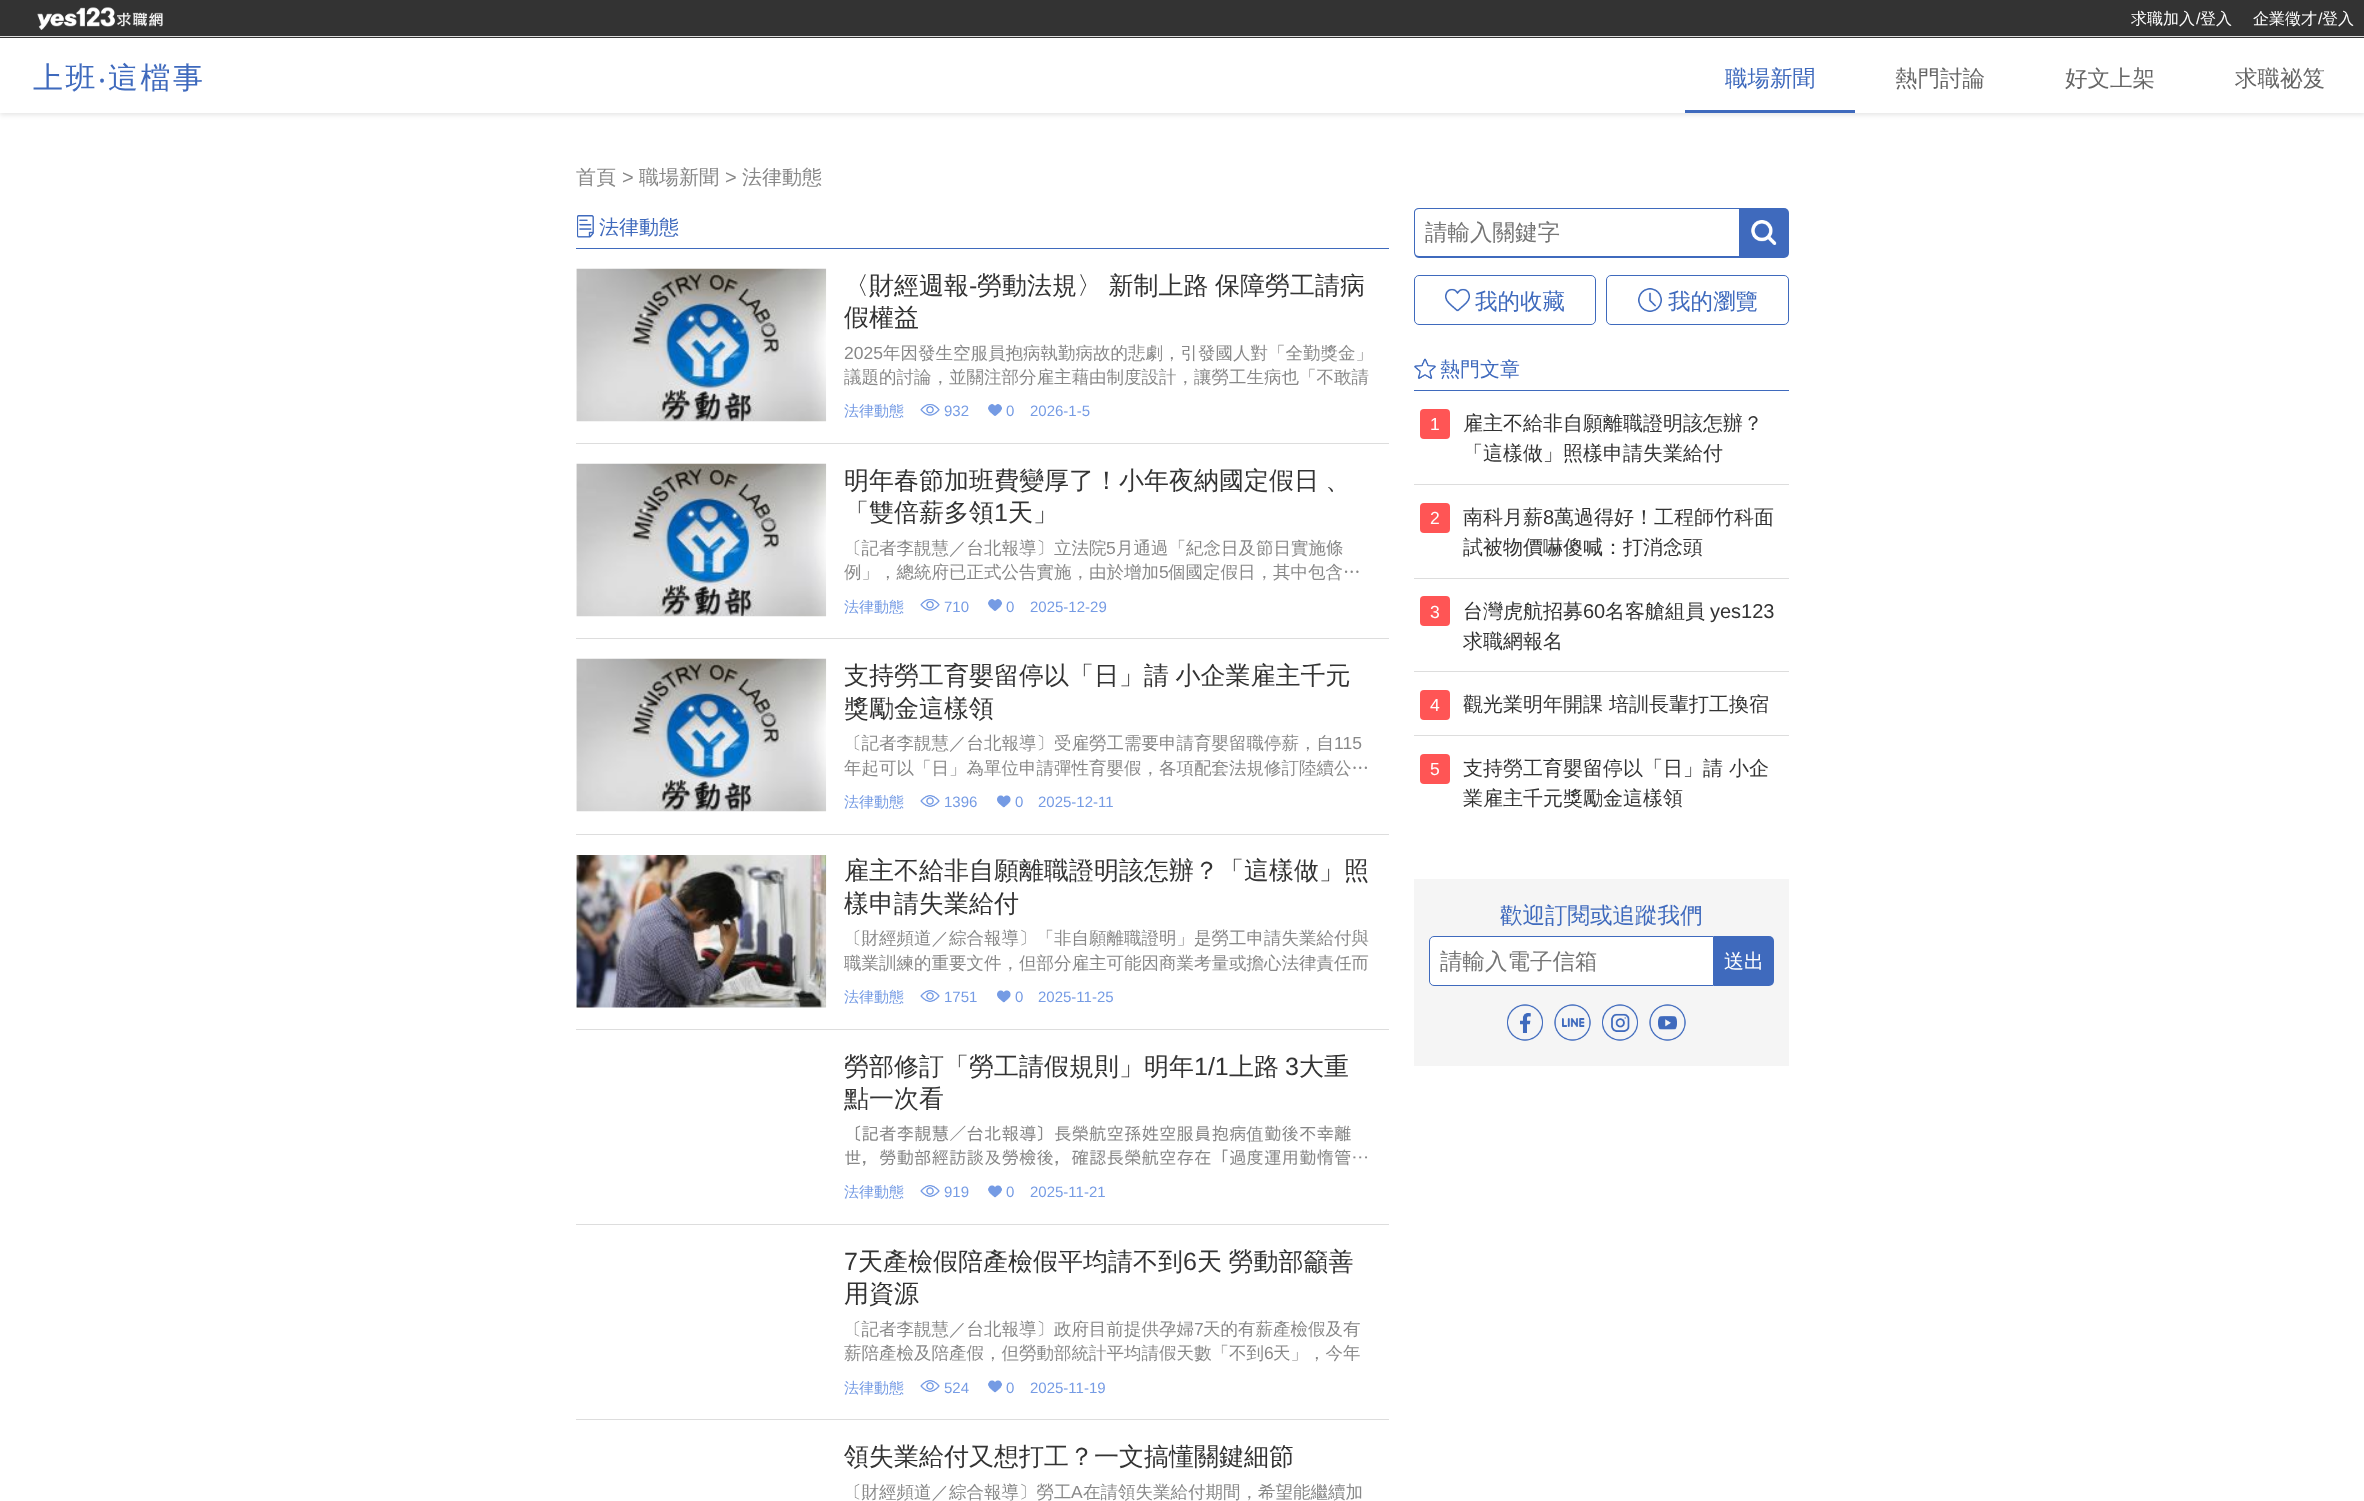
<!DOCTYPE html>
<meta charset="utf-8">
<style>body { margin: 0 } canvas { display: block }</style>
<canvas id="canvas" width="2364" height="1501"></canvas>
<script type="module">
  const canvas = document.getElementById("canvas");
  const ctx = canvas.getContext("2d");
  ctx.miterLimit = 4;
  ctx.fontKerning = "normal";
  async function loadImage(src) {
    const img = new Image();
    img.src = src;
    await img.decode();
    return img;
  }

  ctx.fillStyle = "#ffffff";
  ctx.fillRect(0, 0, 2364, 1501);
  ctx.fillStyle = "rgba(0, 0, 0, 0.1)";
  ctx.filter = "blur(2.5px)";
  ctx.beginPath();
  ctx.rect(0, 40, 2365, 75);
  ctx.fill();
  ctx.filter = "none";
  ctx.fillStyle = "#333333";
  ctx.fillRect(0, 0, 2364, 38);
  ctx.fillStyle = "#dddddd";
  ctx.fillRect(0, 36, 2364, 1);
  ctx.drawImage(await loadImage("img1.png"), 37, 7, 126, 23);
  ctx.font = "500 16px WenQuanYi Zen Hei";
  ctx.fillStyle = "#ffffff";
  ctx.fillText("求職加入", 2131, 24);
  ctx.font = "16px Liberation Sans";
  ctx.fillText("/", 2196, 24);
  ctx.font = "500 16px WenQuanYi Zen Hei";
  ctx.fillText("登入", 2200, 24);
  ctx.fillText("企業徵才", 2253, 24);
  ctx.font = "16px Liberation Sans";
  ctx.fillText("/", 2318, 24);
  ctx.font = "500 16px WenQuanYi Zen Hei";
  ctx.fillText("登入", 2322, 24);
  ctx.fillRect(0, 38, 2364, 75);
  ctx.letterSpacing = "2.5px";
  ctx.font = "500 30px WenQuanYi Zen Hei";
  ctx.fillStyle = "#3f6abd";
  ctx.fillText("上班", 33, 88);
  ctx.font = "30px Noto Sans";
  ctx.fillText("‧", 98, 88);
  ctx.font = "500 30px WenQuanYi Zen Hei";
  ctx.fillText("這檔事", 108, 88);
  ctx.fillRect(1685, 110, 170, 3);
  ctx.letterSpacing = "0px";
  ctx.font = "500 22.5px WenQuanYi Zen Hei";
  ctx.fillText("職場新聞", 1725, 86);
  ctx.fillStyle = "#666666";
  ctx.fillText("熱門討論", 1895, 86);
  ctx.fillText("好文上架", 2065, 86);
  ctx.fillText("求職祕笈", 2235, 86);
  ctx.font = "500 20px WenQuanYi Zen Hei";
  ctx.fillStyle = "#888888";
  ctx.fillText("首頁", 576, 184);
  ctx.font = "20px Liberation Sans";
  ctx.fillText(">", 622, 184);
  ctx.font = "500 20px WenQuanYi Zen Hei";
  ctx.fillText("職場新聞", 639, 184);
  ctx.font = "20px Liberation Sans";
  ctx.fillText(">", 725, 184);
  ctx.font = "500 20px WenQuanYi Zen Hei";
  ctx.fillText("法律動態", 742, 184);
  ctx.fillStyle = "#3f6abd";
  ctx.fillRect(576, 248, 813, 1);
  ctx.drawImage(await loadImage("img2.png"), 577, 215, 17, 23);
  ctx.fillText("法律動態", 599, 234);
  ctx.fillStyle = "#dddddd";
  ctx.fillRect(576, 443, 813, 1);
  ctx.drawImage(await loadImage("img3.png"), 576, 268, 251, 154);
  ctx.font = "500 25px WenQuanYi Zen Hei";
  ctx.fillStyle = "#333333";
  ctx.fillText("〈財經週報", 844, 294);
  ctx.font = "25px Liberation Sans";
  ctx.fillText("-", 969, 294);
  ctx.wordSpacing = "-1px";
  ctx.font = "500 25px WenQuanYi Zen Hei";
  ctx.fillText("勞動法規〉 新制上路 保障勞工請病", 977, 294);
  ctx.wordSpacing = "0px";
  ctx.fillText("假權益", 844, 326);
  ctx.font = "17.5px Liberation Sans";
  ctx.fillStyle = "#888888";
  ctx.fillText("2025", 844, 359);
  ctx.font = "500 17.5px WenQuanYi Zen Hei";
  ctx.fillText("年因發生空服員抱病執勤病故的悲劇，引發國人對「全勤獎金」", 883, 359);
  ctx.fillText("議題的討論，並關注部分雇主藉由制度設計，讓勞工生病也「不敢請", 844, 383);
  ctx.font = "500 15px WenQuanYi Zen Hei";
  ctx.fillStyle = "#759be4";
  ctx.fillText("法律動態", 844, 416);
  ctx.drawImage(await loadImage("img4.png"), 920, 404, 20, 12);
  ctx.font = "15px Liberation Sans";
  ctx.fillText("932", 944, 416);
  ctx.drawImage(await loadImage("img5.png"), 988, 404, 14, 12);
  ctx.fillText("0", 1006, 416);
  ctx.fillText("2026-1-5", 1030, 416);
  ctx.fillStyle = "#dddddd";
  ctx.fillRect(576, 638, 813, 1);
  ctx.drawImage(await loadImage("img3.png"), 576, 463, 251, 154);
  ctx.wordSpacing = "-1px";
  ctx.font = "500 25px WenQuanYi Zen Hei";
  ctx.fillStyle = "#333333";
  ctx.fillText("明年春節加班費變厚了！小年夜納國定假日 、", 844, 489);
  ctx.wordSpacing = "0px";
  ctx.fillText("「雙倍薪多領", 844, 521);
  ctx.font = "25px Liberation Sans";
  ctx.fillText("1", 994, 521);
  ctx.font = "500 25px WenQuanYi Zen Hei";
  ctx.fillText("天」", 1008, 521);
  ctx.font = "500 17.5px WenQuanYi Zen Hei";
  ctx.fillStyle = "#888888";
  ctx.fillText("〔記者李靚慧／台北報導〕立法院", 844, 554);
  ctx.font = "17.5px Liberation Sans";
  ctx.fillText("5", 1106, 554);
  ctx.font = "500 17.5px WenQuanYi Zen Hei";
  ctx.fillText("月通過「紀念日及節日實施條", 1116, 554);
  ctx.fillText("例」，總統府已正式公告實施，由於增加", 844, 578);
  ctx.font = "17.5px Liberation Sans";
  ctx.fillText("5", 1159, 578);
  ctx.font = "500 17.5px WenQuanYi Zen Hei";
  ctx.fillText("個國定假日，其中包含…", 1168, 578);
  ctx.font = "500 15px WenQuanYi Zen Hei";
  ctx.fillStyle = "#759be4";
  ctx.fillText("法律動態", 844, 612);
  ctx.drawImage(await loadImage("img4.png"), 920, 599, 20, 12);
  ctx.font = "15px Liberation Sans";
  ctx.fillText("710", 944, 612);
  ctx.drawImage(await loadImage("img5.png"), 988, 599, 14, 12);
  ctx.fillText("0", 1006, 612);
  ctx.fillText("2025-12-29", 1030, 612);
  ctx.fillStyle = "#dddddd";
  ctx.fillRect(576, 834, 813, 1);
  ctx.drawImage(await loadImage("img3.png"), 576, 658, 251, 154);
  ctx.wordSpacing = "-1px";
  ctx.font = "500 25px WenQuanYi Zen Hei";
  ctx.fillStyle = "#333333";
  ctx.fillText("支持勞工育嬰留停以「日」請 小企業雇主千元", 844, 684);
  ctx.wordSpacing = "0px";
  ctx.fillText("獎勵金這樣領", 844, 717);
  ctx.font = "500 17.5px WenQuanYi Zen Hei";
  ctx.fillStyle = "#888888";
  ctx.fillText("〔記者李靚慧／台北報導〕受雇勞工需要申請育嬰留職停薪，自", 844, 749);
  ctx.font = "17.5px Liberation Sans";
  ctx.fillText("115", 1334, 749);
  ctx.font = "500 17.5px WenQuanYi Zen Hei";
  ctx.fillText("年起可以「日」為單位申請彈性育嬰假，各項配套法規修訂陸續公…", 844, 774);
  ctx.font = "500 15px WenQuanYi Zen Hei";
  ctx.fillStyle = "#759be4";
  ctx.fillText("法律動態", 844, 807);
  ctx.drawImage(await loadImage("img6.png"), 920, 795, 20, 12);
  ctx.font = "15px Liberation Sans";
  ctx.fillText("1396", 944, 807);
  ctx.drawImage(await loadImage("img7.png"), 997, 795, 14, 13);
  ctx.fillText("0", 1015, 807);
  ctx.fillText("2025-12-11", 1038, 807);
  ctx.fillStyle = "#dddddd";
  ctx.fillRect(576, 1029, 813, 1);
  ctx.drawImage(await loadImage("img8.png"), 576, 855, 251, 153);
  ctx.font = "500 25px WenQuanYi Zen Hei";
  ctx.fillStyle = "#333333";
  ctx.fillText("雇主不給非自願離職證明該怎辦？「這樣做」照", 844, 879);
  ctx.fillText("樣申請失業給付", 844, 912);
  ctx.font = "500 17.5px WenQuanYi Zen Hei";
  ctx.fillStyle = "#888888";
  ctx.fillText("〔財經頻道／綜合報導〕「非自願離職證明」是勞工申請失業給付與", 844, 944);
  ctx.fillText("職業訓練的重要文件，但部分雇主可能因商業考量或擔心法律責任而", 844, 969);
  ctx.font = "500 15px WenQuanYi Zen Hei";
  ctx.fillStyle = "#759be4";
  ctx.fillText("法律動態", 844, 1002);
  ctx.drawImage(await loadImage("img6.png"), 920, 990, 20, 12);
  ctx.font = "15px Liberation Sans";
  ctx.fillText("1751", 944, 1002);
  ctx.drawImage(await loadImage("img7.png"), 997, 990, 14, 13);
  ctx.fillText("0", 1015, 1002);
  ctx.fillText("2025-11-25", 1038, 1002);
  ctx.fillStyle = "#dddddd";
  ctx.fillRect(576, 1224, 813, 1);
  ctx.font = "500 25px WenQuanYi Zen Hei";
  ctx.fillStyle = "#333333";
  ctx.fillText("勞部修訂「勞工請假規則」明年", 844, 1075);
  ctx.font = "25px Liberation Sans";
  ctx.fillText("1/1", 1194, 1075);
  ctx.font = "500 25px WenQuanYi Zen Hei";
  ctx.fillText("上路", 1229, 1075);
  ctx.font = "25px Liberation Sans";
  ctx.fillText("3", 1285, 1075);
  ctx.font = "500 25px WenQuanYi Zen Hei";
  ctx.fillText("大重", 1299, 1075);
  ctx.fillText("點一次看", 844, 1107);
  ctx.font = "17.5px IPAGothic";
  ctx.fillStyle = "#888888";
  ctx.fillText("〔記者李靚慧／台北報導〕長榮航空孫姓空服員抱病", 844, 1140);
  ctx.font = "500 17.5px WenQuanYi Zen Hei";
  ctx.fillText("值", 1246, 1140);
  ctx.font = "17.5px IPAGothic";
  ctx.fillText("勤後不幸離", 1264, 1140);
  ctx.fillText("世，勞動部經訪談及勞檢後，確認長榮航空存在「過度運用勤惰管…", 844, 1164);
  ctx.font = "500 15px WenQuanYi Zen Hei";
  ctx.fillStyle = "#759be4";
  ctx.fillText("法律動態", 844, 1197);
  ctx.drawImage(await loadImage("img6.png"), 920, 1185, 20, 12);
  ctx.font = "15px Liberation Sans";
  ctx.fillText("919", 944, 1197);
  ctx.drawImage(await loadImage("img9.png"), 988, 1185, 14, 13);
  ctx.fillText("0", 1006, 1197);
  ctx.fillText("2025-11-21", 1030, 1197);
  ctx.fillStyle = "#dddddd";
  ctx.fillRect(576, 1419, 813, 1);
  ctx.font = "25px Liberation Sans";
  ctx.fillStyle = "#333333";
  ctx.fillText("7", 844, 1270);
  ctx.font = "500 25px WenQuanYi Zen Hei";
  ctx.fillText("天產檢假陪產檢假平均請不到", 858, 1270);
  ctx.font = "25px Liberation Sans";
  ctx.fillText("6", 1183, 1270);
  ctx.wordSpacing = "-1px";
  ctx.font = "500 25px WenQuanYi Zen Hei";
  ctx.fillText("天 勞動部籲善", 1197, 1270);
  ctx.wordSpacing = "0px";
  ctx.fillText("用資源", 844, 1302);
  ctx.font = "500 17.5px WenQuanYi Zen Hei";
  ctx.fillStyle = "#888888";
  ctx.fillText("〔記者李靚慧／台北報導〕政府目前提供孕婦", 844, 1335);
  ctx.font = "17.5px Liberation Sans";
  ctx.fillText("7", 1194, 1335);
  ctx.font = "500 17.5px WenQuanYi Zen Hei";
  ctx.fillText("天的有薪產檢假及有", 1203, 1335);
  ctx.fillText("薪陪產檢及陪產假，但勞動部統計平均請假天數「不到", 844, 1359);
  ctx.font = "17.5px Liberation Sans";
  ctx.fillText("6", 1264, 1359);
  ctx.font = "500 17.5px WenQuanYi Zen Hei";
  ctx.fillText("天」，今年", 1273, 1359);
  ctx.font = "500 15px WenQuanYi Zen Hei";
  ctx.fillStyle = "#759be4";
  ctx.fillText("法律動態", 844, 1393);
  ctx.drawImage(await loadImage("img6.png"), 920, 1380, 20, 12);
  ctx.font = "15px Liberation Sans";
  ctx.fillText("524", 944, 1393);
  ctx.drawImage(await loadImage("img9.png"), 988, 1380, 14, 13);
  ctx.fillText("0", 1006, 1393);
  ctx.fillText("2025-11-19", 1030, 1393);
  ctx.font = "500 25px WenQuanYi Zen Hei";
  ctx.fillStyle = "#333333";
  ctx.fillText("領失業給付又想打工？一文搞懂關鍵細節", 844, 1465);
  ctx.font = "500 17.5px WenQuanYi Zen Hei";
  ctx.fillStyle = "#888888";
  ctx.fillText("〔財經頻道／綜合報導〕勞工", 844, 1498);
  ctx.font = "17.5px Liberation Sans";
  ctx.fillText("A", 1071, 1498);
  ctx.font = "500 17.5px WenQuanYi Zen Hei";
  ctx.fillText("在請領失業給付期間，希望能繼續加", 1083, 1498);
  ctx.fillStyle = "#3f6abd";
  ctx.beginPath();
  ctx.moveTo(1419, 208);
  ctx.lineTo(1739, 208);
  ctx.lineTo(1739, 258);
  ctx.lineTo(1419, 258);
  ctx.bezierCurveTo(1416, 258, 1414, 255, 1414, 252);
  ctx.lineTo(1414, 212);
  ctx.bezierCurveTo(1414, 210, 1416, 208, 1419, 208);
  ctx.closePath();
  ctx.moveTo(1419, 209);
  ctx.lineTo(1739, 209);
  ctx.lineTo(1739, 256);
  ctx.lineTo(1419, 256);
  ctx.bezierCurveTo(1417, 256, 1415, 255, 1415, 252);
  ctx.lineTo(1415, 212);
  ctx.bezierCurveTo(1415, 210, 1417, 209, 1419, 209);
  ctx.closePath();
  ctx.fill("evenodd");
  ctx.font = "500 22.5px WenQuanYi Zen Hei";
  ctx.fillStyle = "#757575";
  ctx.fillText("請輸入關鍵字", 1425, 240);
  ctx.fillStyle = "#3f6abd";
  ctx.beginPath();
  ctx.roundRect(1739, 208, 50, 50, [0, 5, 5, 0]);
  ctx.fill();
  ctx.drawImage(await loadImage("img10.png"), 1751, 220, 26, 25);
  ctx.beginPath();
  ctx.roundRect(1414.5, 275.5, 181, 49, 4.5);
  ctx.strokeStyle = "#3f6abd";
  ctx.stroke();
  ctx.drawImage(await loadImage("img11.png"), 1445, 288, 25, 24);
  ctx.fillText("我的收藏", 1475, 309);
  ctx.beginPath();
  ctx.roundRect(1606.5, 275.5, 182, 49, 4.5);
  ctx.stroke();
  ctx.drawImage(await loadImage("img12.png"), 1638, 288, 24, 24);
  ctx.fillText("我的瀏覽", 1668, 309);
  ctx.fillRect(1414, 390, 375, 1);
  ctx.drawImage(await loadImage("img13.png"), 1414, 358, 22, 21);
  ctx.font = "500 20px WenQuanYi Zen Hei";
  ctx.fillText("熱門文章", 1440, 376);
  ctx.fillStyle = "#dddddd";
  ctx.fillRect(1414, 484, 375, 1);
  ctx.fillStyle = "#ff5555";
  ctx.beginPath();
  ctx.roundRect(1420, 409, 30, 30, 4);
  ctx.fill();
  ctx.font = "17.5px Liberation Sans";
  ctx.fillStyle = "#ffffff";
  ctx.fillText("1", 1430, 430);
  ctx.font = "500 20px WenQuanYi Zen Hei";
  ctx.fillStyle = "#333333";
  ctx.fillText("雇主不給非自願離職證明該怎辦？", 1463, 430);
  ctx.fillText("「這樣做」照樣申請失業給付", 1463, 460);
  ctx.fillStyle = "#dddddd";
  ctx.fillRect(1414, 578, 375, 1);
  ctx.fillStyle = "#ff5555";
  ctx.beginPath();
  ctx.roundRect(1420, 503, 30, 30, 4);
  ctx.fill();
  ctx.font = "17.5px Liberation Sans";
  ctx.fillStyle = "#ffffff";
  ctx.fillText("2", 1430, 524);
  ctx.font = "500 20px WenQuanYi Zen Hei";
  ctx.fillStyle = "#333333";
  ctx.fillText("南科月薪", 1463, 524);
  ctx.font = "20px Liberation Sans";
  ctx.fillText("8", 1543, 524);
  ctx.font = "500 20px WenQuanYi Zen Hei";
  ctx.fillText("萬過得好！工程師竹科面", 1554, 524);
  ctx.fillText("試被物價嚇傻喊：打消念頭", 1463, 554);
  ctx.fillStyle = "#dddddd";
  ctx.fillRect(1414, 671, 375, 1);
  ctx.fillStyle = "#ff5555";
  ctx.beginPath();
  ctx.roundRect(1420, 596, 30, 30, 4);
  ctx.fill();
  ctx.font = "17.5px Liberation Sans";
  ctx.fillStyle = "#ffffff";
  ctx.fillText("3", 1430, 618);
  ctx.font = "500 20px WenQuanYi Zen Hei";
  ctx.fillStyle = "#333333";
  ctx.fillText("台灣虎航招募", 1463, 618);
  ctx.font = "20px Liberation Sans";
  ctx.fillText("60", 1583, 618);
  ctx.font = "500 20px WenQuanYi Zen Hei";
  ctx.fillText("名客艙組員", 1605, 618);
  ctx.font = "20px Liberation Sans";
  ctx.fillText("yes123", 1710, 618);
  ctx.font = "500 20px WenQuanYi Zen Hei";
  ctx.fillText("求職網報名", 1463, 648);
  ctx.fillStyle = "#dddddd";
  ctx.fillRect(1414, 735, 375, 1);
  ctx.fillStyle = "#ff5555";
  ctx.beginPath();
  ctx.roundRect(1420, 690, 30, 30, 4);
  ctx.fill();
  ctx.font = "17.5px Liberation Sans";
  ctx.fillStyle = "#ffffff";
  ctx.fillText("4", 1430, 711);
  ctx.font = "500 20px WenQuanYi Zen Hei";
  ctx.fillStyle = "#333333";
  ctx.fillText("觀光業明年開課 培訓長輩打工換宿", 1463, 711);
  ctx.fillStyle = "#ff5555";
  ctx.beginPath();
  ctx.roundRect(1420, 754, 30, 30, 4);
  ctx.fill();
  ctx.font = "17.5px Liberation Sans";
  ctx.fillStyle = "#ffffff";
  ctx.fillText("5", 1430, 775);
  ctx.font = "500 20px WenQuanYi Zen Hei";
  ctx.fillStyle = "#333333";
  ctx.fillText("支持勞工育嬰留停以「日」請 小企", 1463, 775);
  ctx.fillText("業雇主千元獎勵金這樣領", 1463, 805);
  ctx.fillStyle = "#f5f5f5";
  ctx.fillRect(1414, 879, 375, 187);
  ctx.font = "500 22.5px WenQuanYi Zen Hei";
  ctx.fillStyle = "#3f6abd";
  ctx.fillText("歡迎訂閱或追蹤我們", 1500, 923);
  ctx.fillStyle = "#ffffff";
  ctx.beginPath();
  ctx.roundRect(1429.5, 936.5, 284, 49, [4.5, 0, 0, 4.5]);
  ctx.fill();
  ctx.stroke();
  ctx.fillStyle = "#757575";
  ctx.fillText("請輸入電子信箱", 1440, 969);
  ctx.fillStyle = "#3f6abd";
  ctx.beginPath();
  ctx.roundRect(1714, 936, 60, 50, [0, 5, 5, 0]);
  ctx.fill();
  ctx.font = "500 20px WenQuanYi Zen Hei";
  ctx.fillStyle = "#ffffff";
  ctx.fillText("送出", 1724, 968);
  ctx.drawImage(await loadImage("img14.png"), 1507, 1004, 36, 37);
  ctx.drawImage(await loadImage("img15.png"), 1554, 1004, 37, 37);
  ctx.drawImage(await loadImage("img16.png"), 1602, 1004, 36, 37);
  ctx.drawImage(await loadImage("img17.png"), 1649, 1004, 37, 37);
</script>
